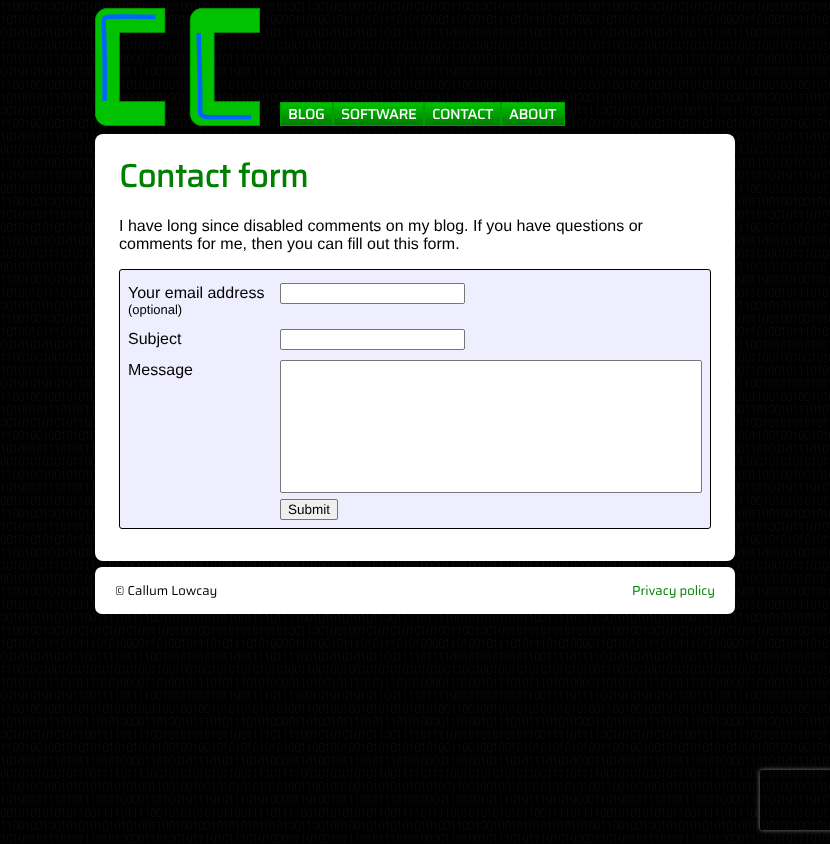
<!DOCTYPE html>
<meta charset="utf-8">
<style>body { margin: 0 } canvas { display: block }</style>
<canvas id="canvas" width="830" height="844"></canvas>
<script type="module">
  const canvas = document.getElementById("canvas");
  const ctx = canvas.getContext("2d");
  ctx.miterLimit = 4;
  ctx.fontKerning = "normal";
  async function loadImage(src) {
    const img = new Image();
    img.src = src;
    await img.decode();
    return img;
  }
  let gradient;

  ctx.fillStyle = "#ffffff";
  ctx.fillRect(0, 0, 830, 844);
  ctx.drawImage(await loadImage("img1.png"), 0, 0, 830, 844);
  ctx.drawImage(await loadImage("img2.png"), 95, 8, 165, 118);
  gradient = ctx.createLinearGradient(307, 103, 307, 125);
  gradient.addColorStop(0, "#00c200");
  gradient.addColorStop(1, "#007d00");
  ctx.fillStyle = gradient;
  ctx.fillRect(281, 103, 51, 22);
  ctx.strokeStyle = "#019e00";
  ctx.strokeRect(280.5, 102.5, 52, 23);
  ctx.font = "bold 14px Saira";
  ctx.fillStyle = "#ffffff";
  ctx.fillText("BLOG", 288, 119);
  gradient = ctx.createLinearGradient(379, 103, 379, 125);
  gradient.addColorStop(0, "#00c200");
  gradient.addColorStop(1, "#007d00");
  ctx.fillStyle = gradient;
  ctx.fillRect(334, 103, 89, 22);
  ctx.strokeRect(333.5, 102.5, 90, 23);
  ctx.fillStyle = "#ffffff";
  ctx.fillText("SOFTWARE", 341, 119);
  gradient = ctx.createLinearGradient(463, 103, 463, 125);
  gradient.addColorStop(0, "#00c200");
  gradient.addColorStop(1, "#007d00");
  ctx.fillStyle = gradient;
  ctx.fillRect(425, 103, 75, 22);
  ctx.strokeRect(424.5, 102.5, 76, 23);
  ctx.fillStyle = "#ffffff";
  ctx.fillText("CONTACT", 432, 119);
  gradient = ctx.createLinearGradient(533, 103, 533, 125);
  gradient.addColorStop(0, "#00c200");
  gradient.addColorStop(1, "#007d00");
  ctx.fillStyle = gradient;
  ctx.fillRect(502, 103, 62, 22);
  ctx.strokeRect(501.5, 102.5, 63, 23);
  ctx.fillStyle = "#ffffff";
  ctx.fillText("ABOUT", 509, 119);
  ctx.beginPath();
  ctx.roundRect(95, 134, 640, 427, 8);
  ctx.fill();
  ctx.font = "bold 32px Saira";
  ctx.fillStyle = "#008000";
  ctx.fillText("Contact form", 119, 187);
  ctx.font = "16px Liberation Sans";
  ctx.fillStyle = "#000000";
  ctx.fillText("I have long since disabled comments on my blog. If you have questions or", 119, 231);
  ctx.fillText("comments for me, then you can fill out this form.", 119, 249);
  ctx.fillStyle = "#eeeeff";
  ctx.beginPath();
  ctx.roundRect(119.5, 269.5, 591, 259, 2.5);
  ctx.fill();
  ctx.strokeStyle = "#000000";
  ctx.stroke();
  ctx.fillStyle = "#000000";
  ctx.fillText("Your email address", 128, 298);
  ctx.font = "13px Liberation Sans";
  ctx.fillText("(optional)", 128, 314);
  ctx.fillStyle = "#ffffff";
  ctx.beginPath();
  ctx.roundRect(280.5, 283.5, 184, 20, 1.5);
  ctx.fill();
  ctx.strokeStyle = "#767676";
  ctx.stroke();
  ctx.font = "16px Liberation Sans";
  ctx.fillStyle = "#000000";
  ctx.fillText("Subject", 128, 344);
  ctx.fillStyle = "#ffffff";
  ctx.beginPath();
  ctx.roundRect(280.5, 329.5, 184, 20, 1.5);
  ctx.fill();
  ctx.stroke();
  ctx.fillStyle = "#000000";
  ctx.fillText("Message", 128, 375);
  ctx.fillStyle = "#ffffff";
  ctx.beginPath();
  ctx.roundRect(280.5, 360.5, 421, 132, 1.5);
  ctx.fill();
  ctx.stroke();
  ctx.fillStyle = "#efefef";
  ctx.beginPath();
  ctx.roundRect(280.5, 499.5, 57, 20, 1.5);
  ctx.fill();
  ctx.stroke();
  ctx.font = "13.5px Liberation Sans";
  ctx.fillStyle = "#000000";
  ctx.fillText("Submit", 288, 514);
  ctx.save();
  ctx.beginPath();
  ctx.moveTo(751, 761);
  ctx.lineTo(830, 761);
  ctx.lineTo(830, 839);
  ctx.lineTo(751, 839);
  ctx.closePath();
  ctx.moveTo(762, 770);
  ctx.lineTo(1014, 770);
  ctx.bezierCurveTo(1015, 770, 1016, 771, 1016, 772);
  ctx.lineTo(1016, 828);
  ctx.bezierCurveTo(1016, 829, 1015, 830, 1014, 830);
  ctx.lineTo(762, 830);
  ctx.bezierCurveTo(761, 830, 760, 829, 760, 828);
  ctx.lineTo(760, 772);
  ctx.bezierCurveTo(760, 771, 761, 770, 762, 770);
  ctx.closePath();
  ctx.clip("evenodd");
  ctx.fillStyle = "#808080";
  ctx.filter = "blur(2.5px)";
  ctx.beginPath();
  ctx.roundRect(760, 770, 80, 60, 2);
  ctx.fill();
  ctx.filter = "none";
  ctx.restore();
  ctx.fillStyle = "#ffffff";
  ctx.beginPath();
  ctx.roundRect(95, 567, 640, 47, 7);
  ctx.fill();
  ctx.font = "100 13px Saira";
  ctx.fillStyle = "#000000";
  ctx.fillText("© Callum Lowcay", 115, 595);
  ctx.fillStyle = "#008000";
  ctx.fillText("Privacy policy", 632, 595);
</script>
